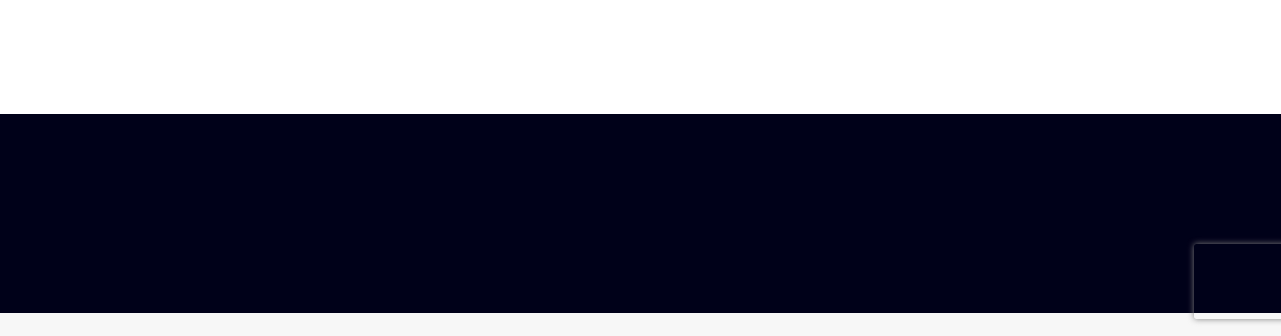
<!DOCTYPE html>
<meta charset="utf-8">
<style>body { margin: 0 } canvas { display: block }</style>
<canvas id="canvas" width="1281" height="336"></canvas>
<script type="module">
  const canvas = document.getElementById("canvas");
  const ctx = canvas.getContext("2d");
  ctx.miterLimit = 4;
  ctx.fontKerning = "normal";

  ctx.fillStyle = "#000119";
  ctx.fillRect(0, 0, 1281, 336);
  ctx.fillStyle = "#ffffff";
  ctx.fillRect(0, 0, 1281, 114);
  ctx.fillStyle = "#f7f7f7";
  ctx.fillRect(0, 313, 1281, 23);
  ctx.save();
  ctx.beginPath();
  ctx.moveTo(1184, 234);
  ctx.lineTo(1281, 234);
  ctx.lineTo(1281, 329);
  ctx.lineTo(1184, 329);
  ctx.closePath();
  ctx.moveTo(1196.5, 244);
  ctx.lineTo(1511.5, 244);
  ctx.bezierCurveTo(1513, 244, 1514, 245, 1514, 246.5);
  ctx.lineTo(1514, 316.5);
  ctx.bezierCurveTo(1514, 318, 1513, 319, 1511.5, 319);
  ctx.lineTo(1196.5, 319);
  ctx.bezierCurveTo(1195, 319, 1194, 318, 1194, 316.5);
  ctx.lineTo(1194, 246.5);
  ctx.bezierCurveTo(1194, 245, 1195, 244, 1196.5, 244);
  ctx.closePath();
  ctx.clip("evenodd");
  ctx.fillStyle = "#808080";
  ctx.filter = "blur(3px)";
  ctx.beginPath();
  ctx.roundRect(1194, 244, 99, 75, 2.5);
  ctx.fill();
  ctx.filter = "none";
  ctx.restore();
</script>
